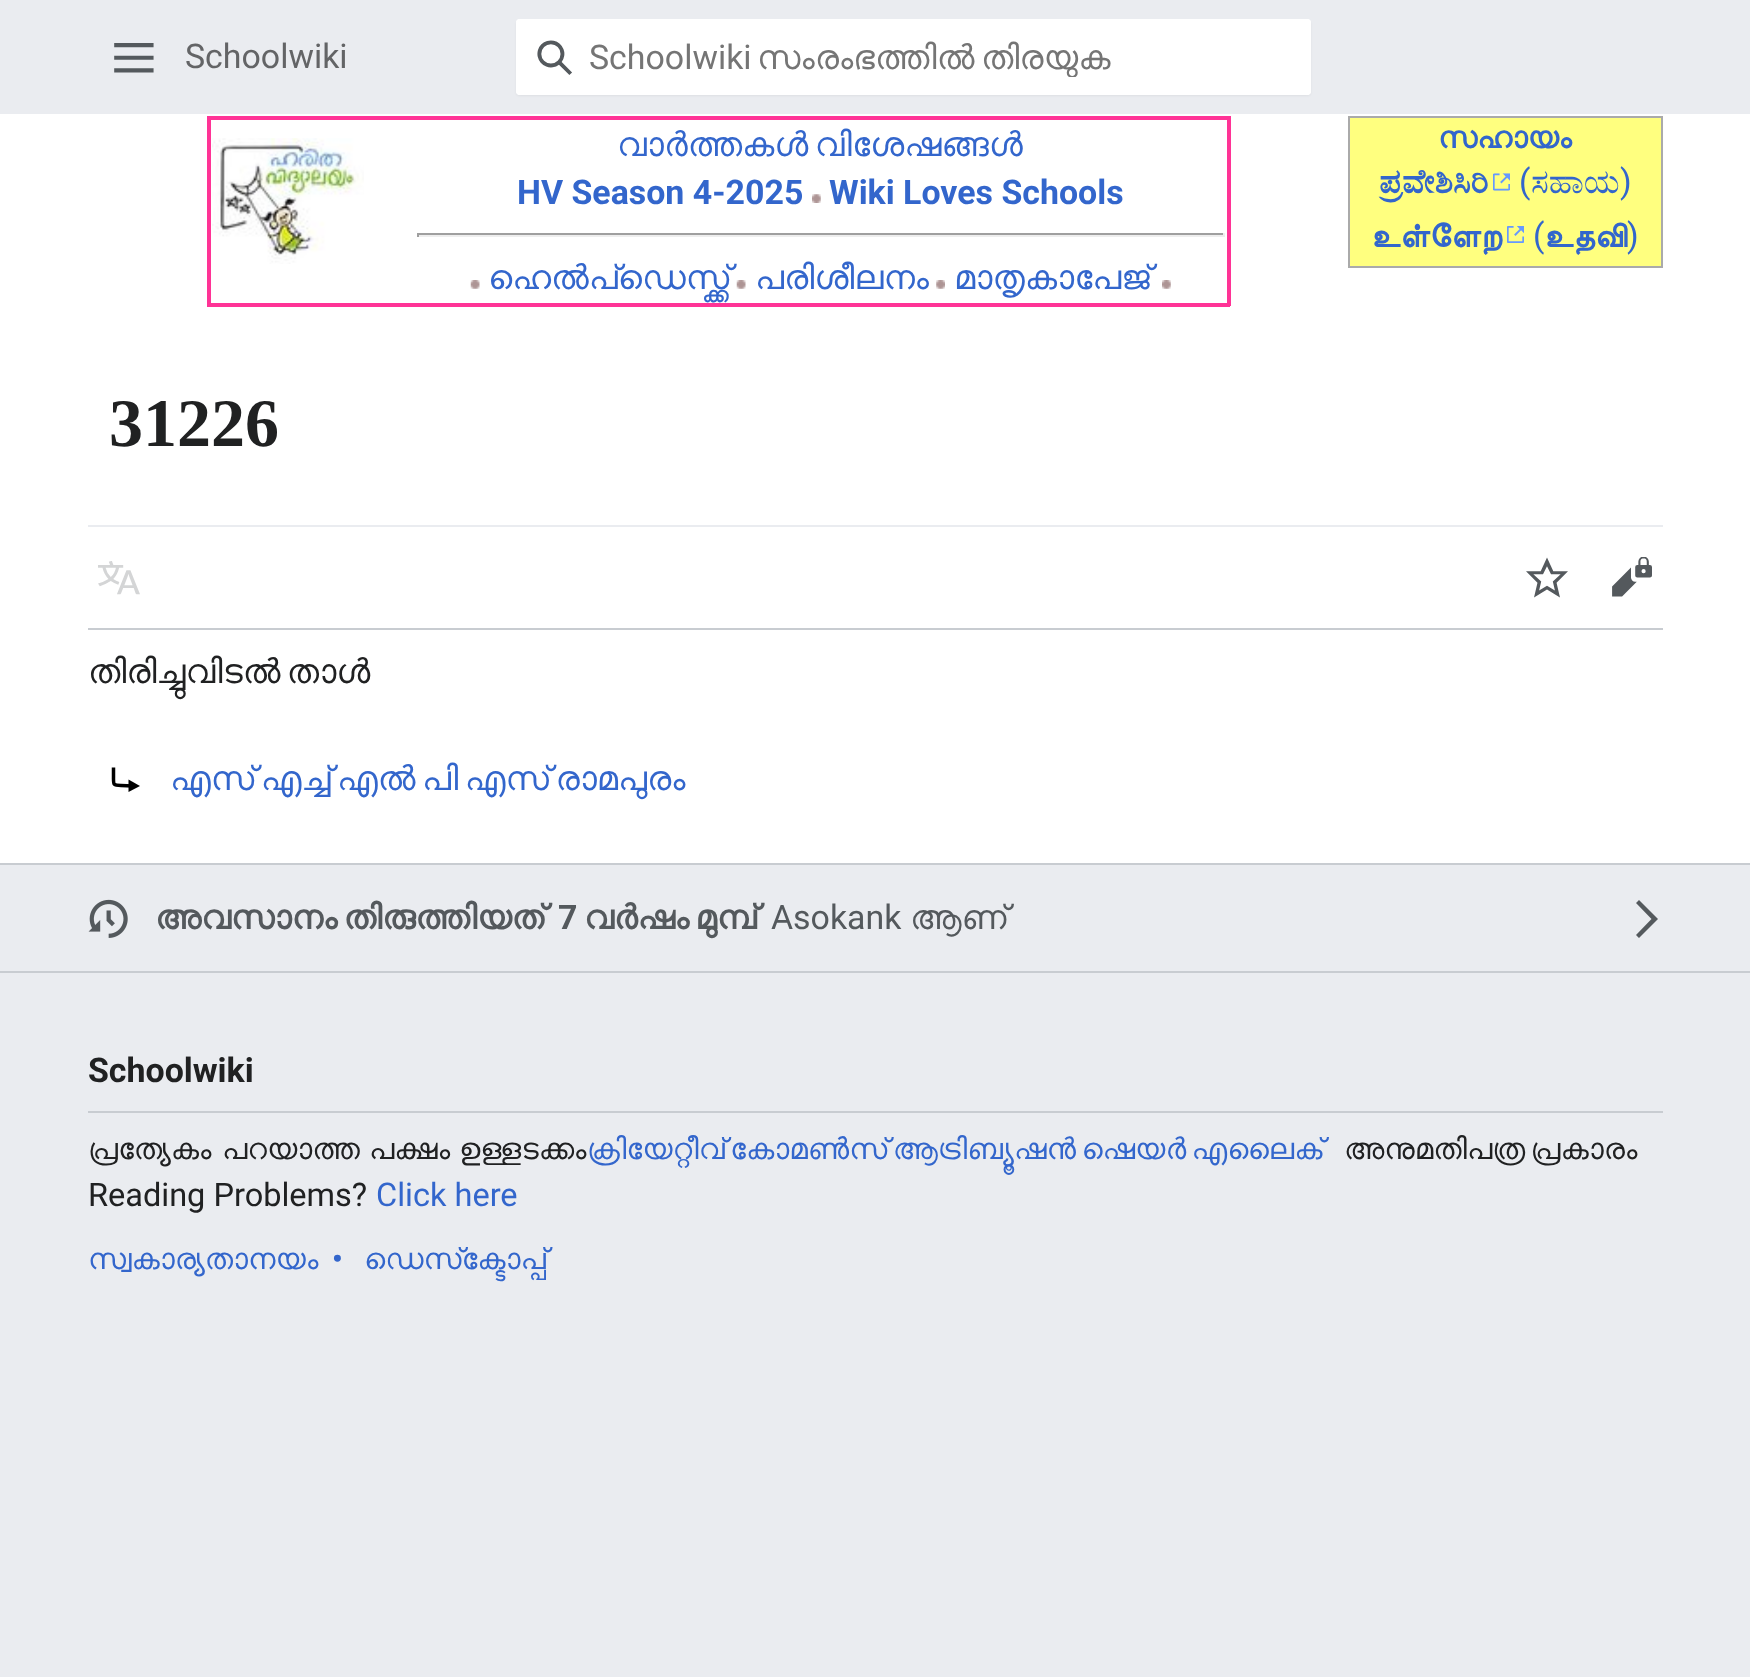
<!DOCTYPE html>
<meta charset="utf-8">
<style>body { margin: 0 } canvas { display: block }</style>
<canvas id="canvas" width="1750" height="1678"></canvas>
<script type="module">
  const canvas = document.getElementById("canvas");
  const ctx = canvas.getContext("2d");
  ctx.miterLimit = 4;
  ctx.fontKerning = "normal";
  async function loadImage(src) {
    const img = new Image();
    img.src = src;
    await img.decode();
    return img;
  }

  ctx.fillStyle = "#ffffff";
  ctx.fillRect(0, 0, 1750, 1678);
  ctx.fillStyle = "#eaecf0";
  ctx.fillRect(0, 0, 1750, 1677);
  ctx.drawImage(await loadImage("img1.png"), 114, 43, 40, 30);
  ctx.font = "33.9px Roboto";
  ctx.fillStyle = "#636466";
  ctx.fillText("Schoolwiki", 185, 68);
  ctx.fillStyle = "rgba(0, 0, 0, 0.05)";
  ctx.filter = "blur(1px)";
  ctx.beginPath();
  ctx.roundRect(516, 21, 795, 75, 4);
  ctx.fill();
  ctx.filter = "none";
  ctx.fillStyle = "#ffffff";
  ctx.beginPath();
  ctx.roundRect(516, 19, 795, 76, 4);
  ctx.fill();
  ctx.drawImage(await loadImage("img2.png"), 537, 40, 35, 35);
  ctx.beginPath();
  ctx.roundRect(517, 20, 793, 74, 3);
  ctx.strokeStyle = "#ffffff";
  ctx.lineWidth = 2;
  ctx.stroke();
  ctx.fillStyle = "#757575";
  ctx.fillText("Schoolwiki", 589, 69);
  ctx.save();
  ctx.beginPath();
  ctx.rect(588, 37, 721, 40);
  ctx.clip();
  ctx.wordSpacing = "-2px";
  ctx.font = "33.9px FreeSans";
  ctx.fillText("സംരംഭത്തിൽ തിരയുക", 757, 69);
  ctx.restore();
  ctx.fillStyle = "#ffffff";
  ctx.fillRect(0, 114, 1750, 749);
  ctx.fillStyle = "#ff3396";
  ctx.fillRect(207, 116, 1023, 4);
  ctx.fillRect(1227, 116, 4, 190);
  ctx.fillRect(207, 303, 1023, 4);
  ctx.fillRect(207, 116, 4, 190);
  ctx.drawImage(await loadImage("img3.png"), 212, 138, 152, 126);
  ctx.wordSpacing = "-2px";
  ctx.font = "33.9px FreeSans";
  ctx.fillStyle = "#3366cc";
  ctx.fillText("വാർത്തകൾ വിശേഷങ്ങൾ", 617, 156);
  ctx.wordSpacing = "0px";
  ctx.font = "bold 33.9px Roboto";
  ctx.fillText("HV Season 4-2025", 517, 204);
  ctx.drawImage(await loadImage("img4.png"), 812, 194, 9, 9);
  ctx.fillText("Wiki Loves Schools", 829, 204);
  ctx.fillStyle = "#9f9f9f";
  ctx.fillRect(417, 233, 808, 2);
  ctx.fillStyle = "#eeeeee";
  ctx.fillRect(1223, 233, 2, 4);
  ctx.fillRect(417, 235, 808, 2);
  ctx.fillStyle = "#9f9f9f";
  ctx.fillRect(417, 233, 2, 4);
  ctx.drawImage(await loadImage("img5.png"), 470, 280, 10, 9);
  ctx.font = "33.9px FreeSans";
  ctx.fillStyle = "#3366cc";
  ctx.fillText("ഹെൽപ്ഡെസ്ക്ക്", 488, 289);
  ctx.drawImage(await loadImage("img5.png"), 736, 280, 10, 9);
  ctx.fillText("പരിശീലനം", 755, 289);
  ctx.drawImage(await loadImage("img6.png"), 936, 280, 9, 9);
  ctx.fillText("മാതൃകാപേജ്", 954, 289);
  ctx.drawImage(await loadImage("img7.png"), 1162, 280, 9, 9);
  ctx.fillStyle = "#ffff7f";
  ctx.fillRect(1350, 118, 311, 148);
  ctx.fillStyle = "#aaaaaa";
  ctx.fillRect(1348, 116, 315, 2);
  ctx.fillRect(1661, 116, 2, 152);
  ctx.fillRect(1348, 266, 315, 2);
  ctx.fillRect(1348, 116, 2, 152);
  ctx.font = "bold 30.5px FreeSans";
  ctx.fillStyle = "#3366cc";
  ctx.fillText("സഹായം", 1438, 148);
  ctx.font = "bold 33.5px FreeSerif";
  ctx.fillText("ಪ್ರವೇಶಿಸಿರಿ", 1379, 193);
  ctx.drawImage(await loadImage("img8.png"), 1493, 173, 17, 18);
  ctx.font = "33.5px Roboto";
  ctx.fillText("(", 1519, 193);
  ctx.font = "33.5px FreeSerif";
  ctx.fillText("ಸಹಾಯ", 1531, 193);
  ctx.font = "33.5px Roboto";
  ctx.fillText(")", 1620, 193);
  ctx.font = "bold 33.5px FreeSans";
  ctx.fillText("உள்ளேற", 1371, 247);
  ctx.drawImage(await loadImage("img9.png"), 1507, 226, 17, 17);
  ctx.font = "33.5px Roboto";
  ctx.fillText("(", 1533, 247);
  ctx.font = "bold 33.5px FreeSans";
  ctx.fillText("உதவி", 1544, 247);
  ctx.font = "33.5px Roboto";
  ctx.fillText(")", 1627, 247);
  ctx.font = "bold 68px Liberation Serif";
  ctx.fillStyle = "#202122";
  ctx.fillText("31226", 109, 446);
  ctx.fillStyle = "#eaecf0";
  ctx.fillRect(88, 525, 1575, 2);
  ctx.fillStyle = "#c8ccd1";
  ctx.fillRect(88, 628, 1575, 2);
  ctx.drawImage(await loadImage("img10.png"), 98, 561, 42, 34);
  ctx.drawImage(await loadImage("img11.png"), 1526, 557, 42, 41);
  ctx.drawImage(await loadImage("img12.png"), 1612, 557, 40, 40);
  ctx.wordSpacing = "-2px";
  ctx.font = "33.9px FreeSans";
  ctx.fillStyle = "#202122";
  ctx.fillText("തിരിച്ചുവിടൽ താൾ", 88, 683);
  ctx.fillStyle = "#3366cc";
  ctx.fillText("എസ് എച്ച് എൽ പി എസ് രാമപുരം", 170, 790);
  ctx.beginPath();
  ctx.moveTo(113.5, 767.5);
  ctx.lineTo(113.5, 777.5);
  ctx.bezierCurveTo(113.5, 784.5, 113, 785.5, 121, 785.5);
  ctx.lineTo(133, 786);
  ctx.strokeStyle = "#000000";
  ctx.lineWidth = 3.5;
  ctx.stroke();
  ctx.fillStyle = "#000000";
  ctx.beginPath();
  ctx.moveTo(128.5, 779.5);
  ctx.lineTo(128.5, 792);
  ctx.lineTo(140, 786);
  ctx.closePath();
  ctx.fill();
  ctx.fillStyle = "#c8ccd1";
  ctx.fillRect(0, 863, 1750, 2);
  ctx.fillRect(0, 971, 1750, 2);
  ctx.drawImage(await loadImage("img13.png"), 88, 899, 40, 39);
  ctx.font = "bold 33.9px FreeSans";
  ctx.fillStyle = "#54595d";
  ctx.fillText("അവസാനം തിരുത്തിയത്", 155, 929);
  ctx.wordSpacing = "0px";
  ctx.font = "bold 33.9px Roboto";
  ctx.fillText("7", 558, 929);
  ctx.wordSpacing = "-2px";
  ctx.font = "bold 33.9px FreeSans";
  ctx.fillText("വർഷം മുമ്പ്", 584, 929);
  ctx.wordSpacing = "0px";
  ctx.font = "33.9px Roboto";
  ctx.fillText("Asokank", 771, 929);
  ctx.font = "33.9px FreeSans";
  ctx.fillText("ആണ്", 910, 929);
  ctx.beginPath();
  ctx.moveTo(1639, 900);
  ctx.lineTo(1636, 903);
  ctx.lineTo(1651.5, 919);
  ctx.lineTo(1636, 935);
  ctx.lineTo(1639, 938);
  ctx.lineTo(1658, 919);
  ctx.closePath();
  ctx.fill();
  ctx.fillStyle = "#c8ccd1";
  ctx.fillRect(88, 1111, 1575, 2);
  ctx.font = "bold 33.9px Roboto";
  ctx.fillStyle = "#202122";
  ctx.fillText("Schoolwiki", 88, 1082);
  ctx.font = "29.65px FreeSans";
  ctx.fillText("പ്രത്യേകം", 88, 1159);
  ctx.fillText("പറയാത്ത", 222, 1159);
  ctx.fillText("പക്ഷം", 369, 1159);
  ctx.fillText("ഉള്ളടക്കം", 459, 1159);
  ctx.wordSpacing = "-2px";
  ctx.fillStyle = "#3366cc";
  ctx.fillText("ക്രിയേറ്റീവ് കോമൺസ് ആട്രിബ്യൂഷൻ ഷെയർ എലൈക്", 587, 1159);
  ctx.fillStyle = "#202122";
  ctx.fillText("അനുമതിപത്ര പ്രകാരം", 1344, 1159);
  ctx.wordSpacing = "0px";
  ctx.font = "32.5px Roboto";
  ctx.fillText("Reading Problems?", 88, 1206);
  ctx.fillStyle = "#3366cc";
  ctx.fillText("Click here", 376, 1206);
  ctx.save();
  ctx.beginPath();
  ctx.rect(88, 1047, 1575, 250);
  ctx.clip();
  ctx.font = "29.65px FreeSans";
  ctx.fillText("സ്വകാര്യതാനയം", 88, 1269);
  ctx.restore();
  ctx.font = "bold 29.65px Roboto";
  ctx.fillText("•", 332, 1269);
  ctx.font = "29.65px FreeSans";
  ctx.fillText("ഡെസ്ക്ടോപ്പ്", 364, 1269);
</script>
